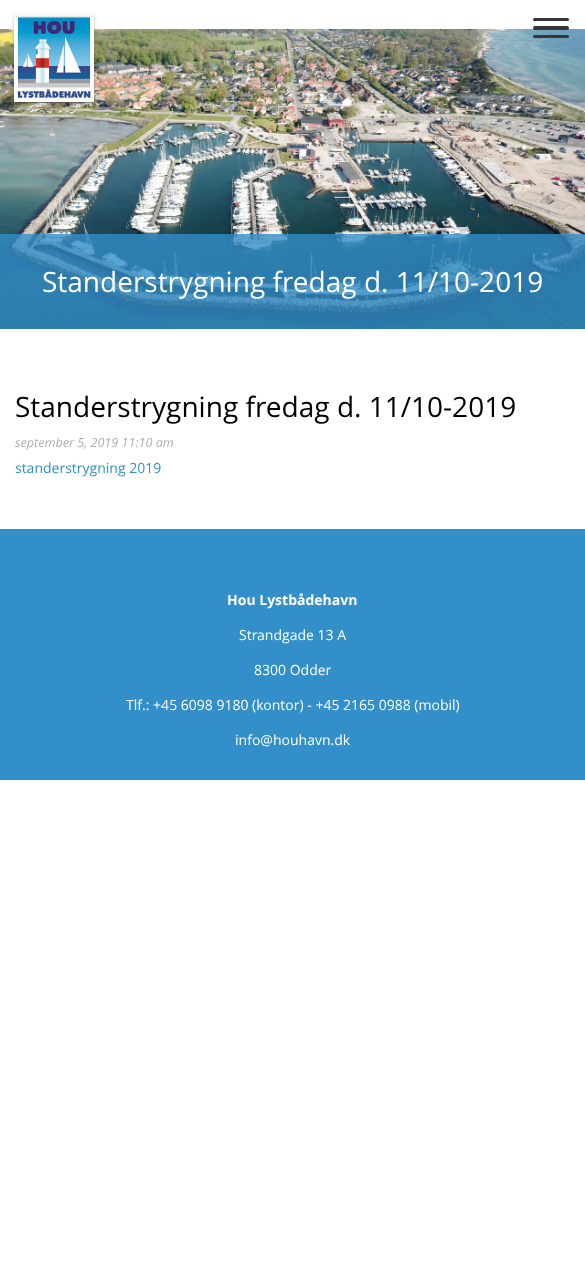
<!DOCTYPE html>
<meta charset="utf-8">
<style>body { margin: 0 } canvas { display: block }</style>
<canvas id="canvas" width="585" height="1269"></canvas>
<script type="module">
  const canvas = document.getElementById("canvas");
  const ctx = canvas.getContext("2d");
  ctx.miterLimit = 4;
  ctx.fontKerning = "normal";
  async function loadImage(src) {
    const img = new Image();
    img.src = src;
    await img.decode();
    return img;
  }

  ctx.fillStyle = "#ffffff";
  ctx.fillRect(0, 0, 585, 1269);
  ctx.drawImage(await loadImage("img2.png"), 0, 29, 585, 300);
  ctx.save();
  ctx.beginPath();
  ctx.moveTo(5, 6);
  ctx.lineTo(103, 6);
  ctx.lineTo(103, 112);
  ctx.lineTo(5, 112);
  ctx.closePath();
  ctx.moveTo(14, 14);
  ctx.lineTo(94, 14);
  ctx.lineTo(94, 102);
  ctx.lineTo(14, 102);
  ctx.closePath();
  ctx.clip("evenodd");
  ctx.fillStyle = "rgba(0, 0, 0, 0.12)";
  ctx.filter = "blur(2.5px)";
  ctx.beginPath();
  ctx.rect(14, 15, 80, 88);
  ctx.fill();
  ctx.filter = "none";
  ctx.restore();
  ctx.fillStyle = "rgba(0, 0, 0, 0.2)";
  ctx.filter = "blur(0.5px)";
  ctx.beginPath();
  ctx.rect(16, 19, 76, 84);
  ctx.fill();
  ctx.filter = "none";
  ctx.fillStyle = "rgba(0, 0, 0, 0.14)";
  ctx.filter = "blur(1px)";
  ctx.beginPath();
  ctx.rect(14, 16, 80, 88);
  ctx.fill();
  ctx.filter = "none";
  ctx.drawImage(await loadImage("img1.png"), 14, 17, 80, 85);
  ctx.fillStyle = "#363636";
  ctx.beginPath();
  ctx.roundRect(533, 26, 36, 4, 2);
  ctx.fill();
  ctx.beginPath();
  ctx.roundRect(533, 18, 36, 3, 1.5);
  ctx.fill();
  ctx.beginPath();
  ctx.roundRect(533, 35, 36, 3, 1.5);
  ctx.fill();
  ctx.fillStyle = "rgba(50, 143, 202, 0.8)";
  ctx.fillRect(0, 234, 585, 95);
  ctx.font = "28px Open Sans";
  ctx.fillStyle = "#ffffff";
  ctx.fillText("Standerstrygning fredag d. 11/10-2019", 42, 292);
  ctx.fillStyle = "#000000";
  ctx.fillText("Standerstrygning fredag d. 11/10-2019", 15, 417);
  ctx.font = "italic 12.6px Open Sans";
  ctx.fillStyle = "#afafaf";
  ctx.fillText("september 5, 2019 11:10 am", 15, 447);
  ctx.font = "14px Open Sans";
  ctx.fillStyle = "#328fca";
  ctx.fillText("standerstrygning 2019", 15, 473);
  ctx.fillRect(0, 529, 585, 251);
  ctx.font = "bold 14px Open Sans";
  ctx.fillStyle = "#ffffff";
  ctx.fillText("Hou Lystbådehavn", 227, 605);
  ctx.font = "14px Open Sans";
  ctx.fillText("Strandgade 13 A", 239, 640);
  ctx.fillText("8300 Odder", 254, 675);
  ctx.fillText("Tlf.: +45 6098 9180 (kontor) - +45 2165 0988 (mobil)", 126, 710);
  ctx.fillText("info@houhavn.dk", 235, 745);
</script>
